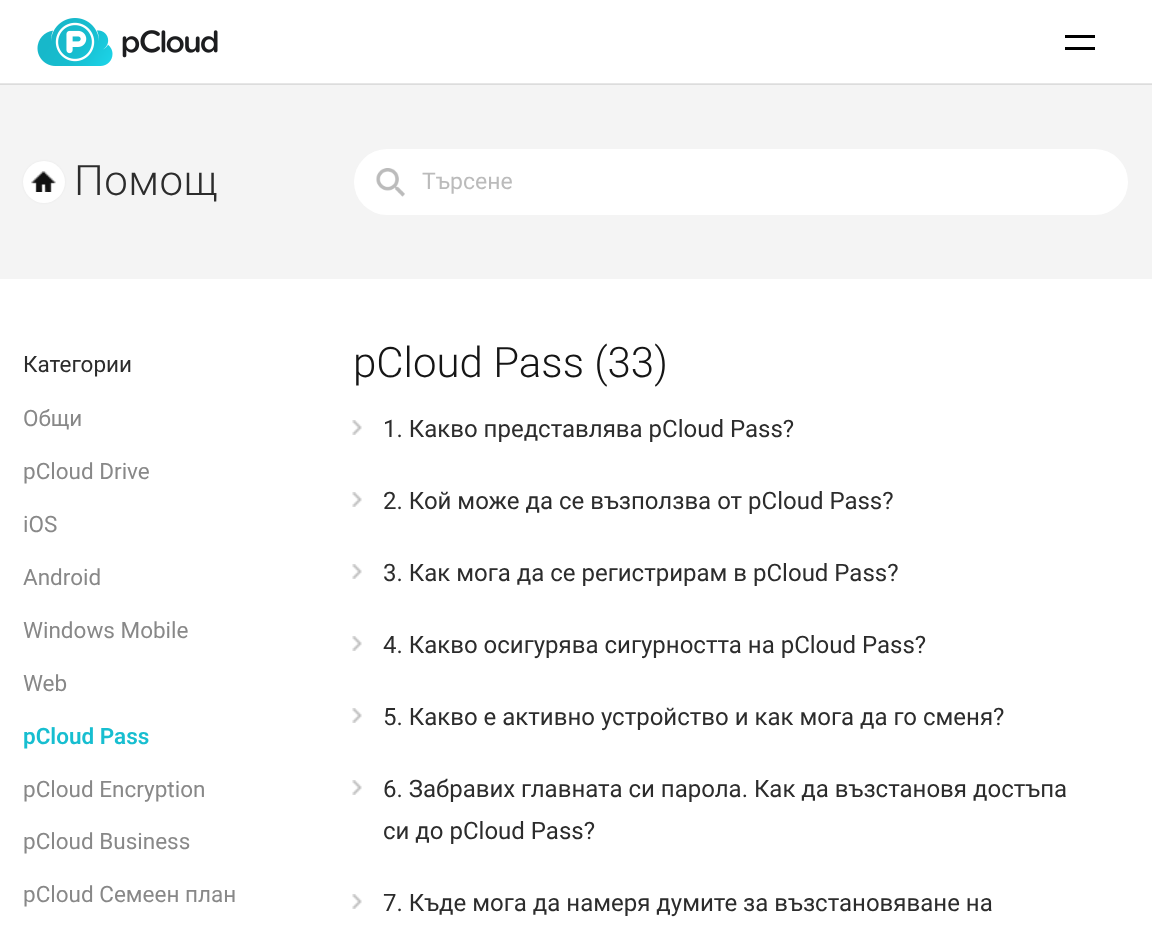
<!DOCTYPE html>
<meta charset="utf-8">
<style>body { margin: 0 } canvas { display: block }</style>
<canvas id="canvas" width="1152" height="927"></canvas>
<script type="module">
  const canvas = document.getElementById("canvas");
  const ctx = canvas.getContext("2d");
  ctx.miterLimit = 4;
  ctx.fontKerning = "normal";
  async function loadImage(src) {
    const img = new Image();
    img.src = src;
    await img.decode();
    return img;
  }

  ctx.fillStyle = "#ffffff";
  ctx.fillRect(0, 0, 1152, 927);
  ctx.fillStyle = "#e6e6e6";
  ctx.fillRect(0, 83, 1152, 1);
  ctx.drawImage(await loadImage("img1.png"), 37, 18, 181, 48);
  ctx.fillStyle = "#000000";
  ctx.fillRect(1065, 35, 30, 3);
  ctx.fillRect(1065, 47, 30, 3);
  ctx.fillStyle = "#f4f4f4";
  ctx.fillRect(0, 85, 1152, 194);
  ctx.fillStyle = "#dcdcdc";
  ctx.fillRect(0, 84, 1152, 1);
  ctx.fillStyle = "rgba(0, 0, 0, 0.05)";
  ctx.filter = "blur(1px)";
  ctx.beginPath();
  ctx.roundRect(23, 161, 42, 42, 21);
  ctx.fill();
  ctx.filter = "none";
  ctx.fillStyle = "#ffffff";
  ctx.beginPath();
  ctx.arc(44, 182, 21, 0, Math.PI * 2);
  ctx.fill();
  ctx.drawImage(await loadImage("img2.png"), 31, 171, 25, 21);
  ctx.letterSpacing = "0.5px";
  ctx.font = "300 42px Roboto";
  ctx.fillStyle = "#2c2c2c";
  ctx.fillText("Помощ", 74, 195);
  ctx.fillStyle = "#ffffff";
  ctx.beginPath();
  ctx.roundRect(354, 149, 774, 66, 33);
  ctx.fill();
  ctx.drawImage(await loadImage("img3.png"), 376, 168, 29, 29);
  ctx.letterSpacing = "0px";
  ctx.font = "23px Roboto";
  ctx.fillStyle = "#bbbbbb";
  ctx.fillText("Търсене", 422, 189);
  ctx.font = "22.5px Roboto";
  ctx.fillStyle = "#2c2c2c";
  ctx.fillText("Категории", 23, 372);
  ctx.fillStyle = "#888888";
  ctx.fillText("Общи", 23, 426);
  ctx.fillText("pCloud Drive", 23, 479);
  ctx.fillText("iOS", 23, 532);
  ctx.fillText("Android", 23, 585);
  ctx.fillText("Windows Mobile", 23, 638);
  ctx.fillText("Web", 23, 691);
  ctx.font = "600 22.5px Roboto";
  ctx.fillStyle = "#17bed0";
  ctx.fillText("pCloud Pass", 23, 744);
  ctx.font = "22.5px Roboto";
  ctx.fillStyle = "#888888";
  ctx.fillText("pCloud Encryption", 23, 797);
  ctx.fillText("pCloud Business", 23, 849);
  ctx.fillText("pCloud Семеен план", 23, 902);
  ctx.font = "300 42px Roboto";
  ctx.fillStyle = "#151515";
  ctx.fillText("pCloud Pass (33)", 353, 377);
  ctx.drawImage(await loadImage("img4.png"), 352, 420, 10, 15);
  ctx.font = "24px Roboto";
  ctx.fillStyle = "#2c2c2c";
  ctx.fillText("1. Какво представлява pCloud Pass?", 383, 437);
  ctx.drawImage(await loadImage("img4.png"), 352, 492, 10, 15);
  ctx.fillText("2. Кой може да се възползва от pCloud Pass?", 383, 509);
  ctx.drawImage(await loadImage("img4.png"), 352, 564, 10, 15);
  ctx.fillText("3. Как мога да се регистрирам в pCloud Pass?", 383, 581);
  ctx.drawImage(await loadImage("img4.png"), 352, 636, 10, 15);
  ctx.fillText("4. Какво осигурява сигурността на pCloud Pass?", 383, 653);
  ctx.drawImage(await loadImage("img4.png"), 352, 708, 10, 15);
  ctx.fillText("5. Какво е активно устройство и как мога да го сменя?", 383, 725);
  ctx.drawImage(await loadImage("img4.png"), 352, 780, 10, 15);
  ctx.fillText("6. Забравих главната си парола. Как да възстановя достъпа", 383, 797);
  ctx.fillText("си до pCloud Pass?", 383, 839);
  ctx.drawImage(await loadImage("img4.png"), 352, 894, 10, 15);
  ctx.fillText("7. Къде мога да намеря думите за възстановяване на", 383, 911);
</script>
